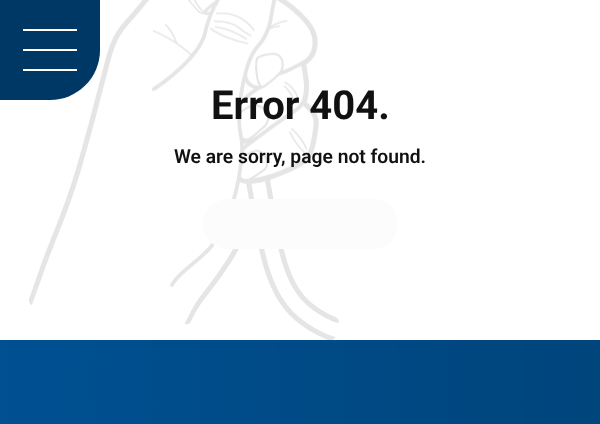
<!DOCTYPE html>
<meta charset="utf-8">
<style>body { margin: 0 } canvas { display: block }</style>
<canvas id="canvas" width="600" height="424"></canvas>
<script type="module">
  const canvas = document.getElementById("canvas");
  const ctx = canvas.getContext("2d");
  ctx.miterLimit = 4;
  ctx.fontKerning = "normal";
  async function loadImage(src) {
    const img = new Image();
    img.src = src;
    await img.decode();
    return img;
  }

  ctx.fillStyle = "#ffffff";
  ctx.fillRect(0, 0, 600, 424);
  ctx.drawImage(await loadImage("img1.png"), 29, 0, 310, 340);
  ctx.fillStyle = "#003865";
  ctx.beginPath();
  ctx.roundRect(0, 0, 100, 100, [0, 0, 50, 0]);
  ctx.fill();
  ctx.fillStyle = "#ffffff";
  ctx.fillRect(23, 29, 54, 2);
  ctx.fillRect(23, 49, 54, 2);
  ctx.fillRect(23, 69, 54, 2);
  ctx.font = "bold 40px Roboto";
  ctx.fillStyle = "#111112";
  ctx.fillText("Error 404.", 211, 119);
  ctx.font = "600 19.25px Roboto";
  ctx.fillText("We are sorry, page not found.", 174, 163);
  ctx.fillStyle = "#fcfcfc";
  ctx.beginPath();
  ctx.roundRect(203, 199, 195, 50, 25);
  ctx.fill();
  ctx.drawImage(await loadImage("img2.png"), 0, 340, 600, 84);
</script>
